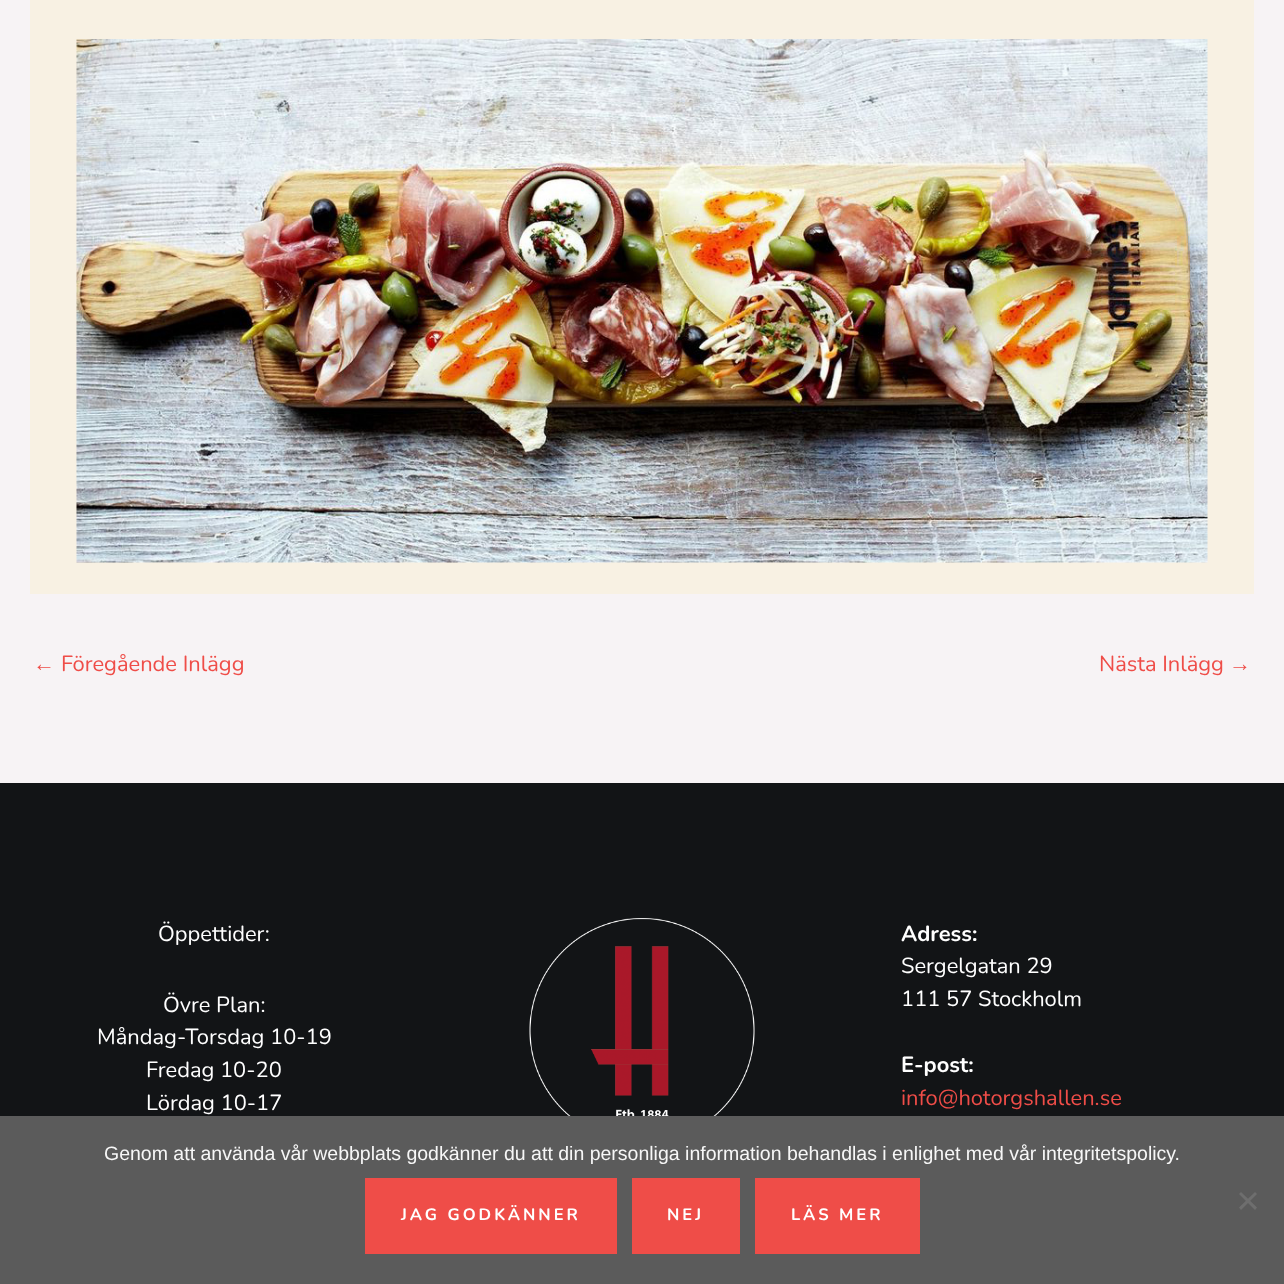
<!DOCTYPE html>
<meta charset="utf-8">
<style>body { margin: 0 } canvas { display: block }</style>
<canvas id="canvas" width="1284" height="1284"></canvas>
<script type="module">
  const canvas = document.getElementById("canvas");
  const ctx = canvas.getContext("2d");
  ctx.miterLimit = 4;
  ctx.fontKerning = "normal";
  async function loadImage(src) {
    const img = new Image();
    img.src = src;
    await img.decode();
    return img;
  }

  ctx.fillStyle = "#f7f3f5";
  ctx.fillRect(0, 0, 1284, 1284);
  ctx.fillStyle = "#f8f1e3";
  ctx.fillRect(30, 0, 1224, 594);
  ctx.drawImage(await loadImage("img1.png"), 76, 39, 1132, 524);
  ctx.font = "21.9px Liberation Sans";
  ctx.fillStyle = "#ef4d48";
  ctx.fillText("←", 33, 671);
  ctx.font = "21.9px Nunito";
  ctx.fillText("Föregående Inlägg", 61, 671);
  ctx.fillText("Nästa Inlägg", 1099, 671);
  ctx.font = "21.9px Liberation Sans";
  ctx.fillText("→", 1229, 671);
  ctx.fillStyle = "#121416";
  ctx.fillRect(0, 783, 1284, 333);
  ctx.font = "21.9px Nunito";
  ctx.fillStyle = "#ffffff";
  ctx.fillText("Öppettider:", 158, 941);
  ctx.fillText("Övre Plan:", 163, 1012);
  ctx.fillText("Måndag-Torsdag 10-19", 97, 1044);
  ctx.fillText("Fredag 10-20", 146, 1077);
  ctx.fillText("Lördag 10-17", 146, 1110);
  ctx.drawImage(await loadImage("img2.png"), 529, 918, 226, 198);
  ctx.font = "bold 21.9px Nunito";
  ctx.fillText("Adress:", 901, 941);
  ctx.font = "21.9px Nunito";
  ctx.fillText("Sergelgatan 29", 901, 973);
  ctx.fillText("111 57 Stockholm", 901, 1006);
  ctx.font = "bold 21.9px Nunito";
  ctx.fillText("E-post:", 901, 1072);
  ctx.font = "21.9px Nunito";
  ctx.fillStyle = "#ef4d48";
  ctx.fillText("info@hotorgshallen.se", 901, 1105);
  ctx.fillStyle = "#5b5b5b";
  ctx.fillRect(0, 1116, 1284, 168);
  ctx.font = "19.5px Liberation Sans";
  ctx.fillStyle = "#f7f7f7";
  ctx.fillText("Genom att använda vår webbplats godkänner du att din personliga information behandlas i enlighet med vår integritetspolicy.", 104, 1160);
  ctx.fillStyle = "#6e6e6e";
  ctx.beginPath();
  ctx.moveTo(1255, 1192);
  ctx.lineTo(1257, 1194);
  ctx.lineTo(1241, 1210);
  ctx.lineTo(1239, 1207.5);
  ctx.closePath();
  ctx.fill();
  ctx.beginPath();
  ctx.moveTo(1239, 1194);
  ctx.lineTo(1241, 1192);
  ctx.lineTo(1257, 1207.5);
  ctx.lineTo(1255, 1210);
  ctx.closePath();
  ctx.fill();
  ctx.fillStyle = "#ef4d48";
  ctx.fillRect(365, 1178, 252, 76);
  ctx.letterSpacing = "3px";
  ctx.font = "bold 16.5px Nunito";
  ctx.fillStyle = "#ffffff";
  ctx.fillText("JAG GODKÄNNER", 401, 1220);
  ctx.fillStyle = "#ef4d48";
  ctx.fillRect(632, 1178, 108, 76);
  ctx.fillStyle = "#ffffff";
  ctx.fillText("NEJ", 667, 1220);
  ctx.fillStyle = "#ef4d48";
  ctx.fillRect(755, 1178, 165, 76);
  ctx.fillStyle = "#ffffff";
  ctx.fillText("LÄS MER", 791, 1220);
</script>
